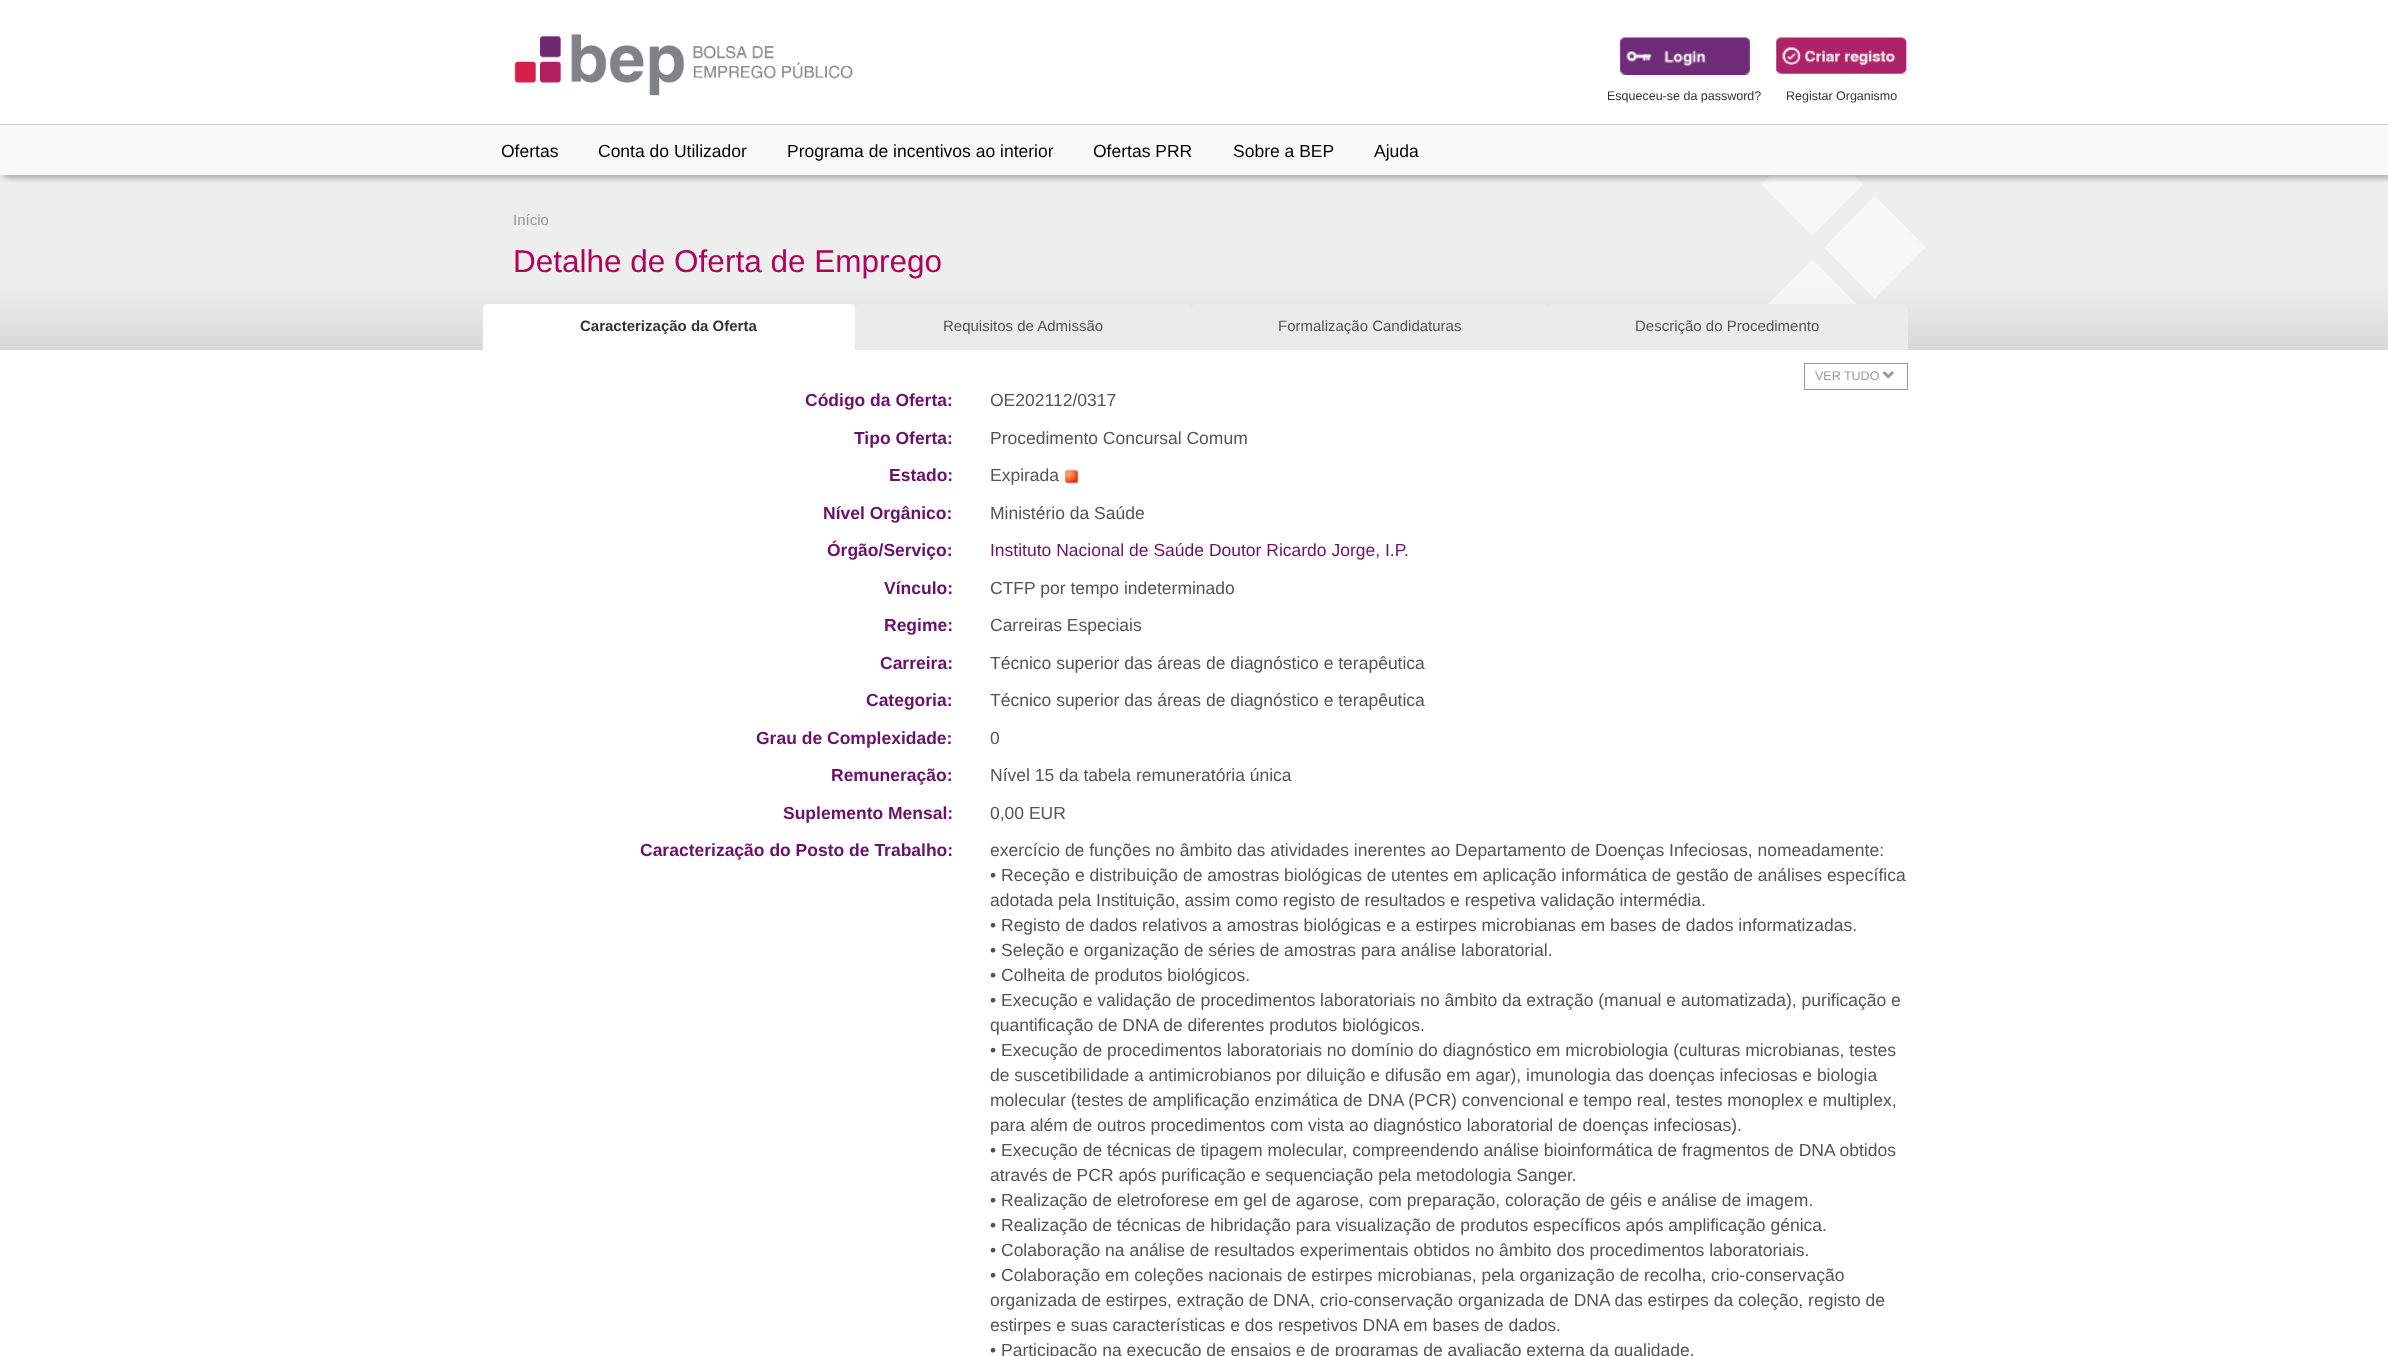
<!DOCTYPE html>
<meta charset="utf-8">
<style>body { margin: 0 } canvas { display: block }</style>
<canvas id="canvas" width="2388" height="1356"></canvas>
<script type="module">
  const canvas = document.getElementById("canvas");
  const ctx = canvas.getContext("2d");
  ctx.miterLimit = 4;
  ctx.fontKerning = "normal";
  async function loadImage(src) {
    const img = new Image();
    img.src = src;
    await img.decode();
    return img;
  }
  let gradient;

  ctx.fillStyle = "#ffffff";
  ctx.fillRect(0, 0, 2388, 1356);
  gradient = ctx.createLinearGradient(1194, 175, 1194, 350);
  gradient.addColorStop(0.63, "#eeeeee");
  gradient.addColorStop(1, "#d8d8d8");
  ctx.fillStyle = gradient;
  ctx.fillRect(0, 175, 2388, 175);
  ctx.drawImage(await loadImage("img4.png"), 1761, 175, 165, 129);
  ctx.save();
  ctx.beginPath();
  ctx.rect(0, 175, 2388, 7);
  ctx.clip();
  ctx.fillStyle = "rgba(0, 0, 0, 0.3)";
  ctx.filter = "blur(3px)";
  ctx.beginPath();
  ctx.rect(4, 3, 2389, 175);
  ctx.fill();
  ctx.filter = "none";
  ctx.restore();
  ctx.fillStyle = "#cccccc";
  ctx.fillRect(0, 124, 2388, 1);
  ctx.drawImage(await loadImage("img1.png"), 514, 33, 339, 63);
  ctx.drawImage(await loadImage("img2.png"), 1776, 37, 131, 37);
  ctx.drawImage(await loadImage("img3.png"), 1619, 37, 131, 38);
  ctx.font = "12.5px Liberation Sans";
  ctx.fillStyle = "#333333";
  ctx.fillText("Esqueceu-se da password?", 1607, 100);
  ctx.fillText("Registar Organismo", 1786, 100);
  ctx.fillStyle = "#f9f9f9";
  ctx.fillRect(0, 125, 2388, 50);
  ctx.font = "17.5px Liberation Sans";
  ctx.fillStyle = "#000000";
  ctx.fillText("Ofertas", 501, 157);
  ctx.fillText("Conta do Utilizador", 598, 157);
  ctx.fillText("Programa de incentivos ao interior", 787, 157);
  ctx.fillText("Ofertas PRR", 1093, 157);
  ctx.fillText("Sobre a BEP", 1233, 157);
  ctx.fillText("Ajuda", 1374, 157);
  ctx.font = "15px Liberation Sans";
  ctx.fillStyle = "#999999";
  ctx.fillText("Início", 513, 225);
  ctx.font = "31.5px Liberation Sans";
  ctx.fillStyle = "#b00257";
  ctx.fillText("Detalhe de Oferta de Emprego", 513, 272);
  ctx.fillStyle = "#ffffff";
  ctx.beginPath();
  ctx.roundRect(483, 304, 372, 46, [5, 5, 0, 0]);
  ctx.fill();
  ctx.font = "bold 15px Liberation Sans";
  ctx.fillStyle = "#333333";
  ctx.fillText("Caracterização da Oferta", 580, 331);
  ctx.fillStyle = "#ebebeb";
  ctx.beginPath();
  ctx.roundRect(855, 304, 336, 46, [5, 5, 0, 0]);
  ctx.fill();
  ctx.font = "15px Liberation Sans";
  ctx.fillStyle = "#545454";
  ctx.fillText("Requisitos de Admissão", 943, 331);
  ctx.fillStyle = "#ebebeb";
  ctx.beginPath();
  ctx.roundRect(1191, 304, 357, 46, [5, 5, 0, 0]);
  ctx.fill();
  ctx.fillStyle = "#545454";
  ctx.fillText("Formalização Candidaturas", 1278, 331);
  ctx.fillStyle = "#ebebeb";
  ctx.beginPath();
  ctx.roundRect(1548, 304, 360, 46, [5, 5, 0, 0]);
  ctx.fill();
  ctx.fillStyle = "#545454";
  ctx.fillText("Descrição do Procedimento", 1635, 331);
  ctx.strokeStyle = "#999999";
  ctx.strokeRect(1804.5, 363.5, 103, 26);
  ctx.font = "12.5px Liberation Sans";
  ctx.fillStyle = "#999999";
  ctx.fillText("VER TUDO", 1815, 380);
  ctx.drawImage(await loadImage("img5.png"), 1882, 371, 12, 8);
  ctx.font = "bold 17.5px Liberation Sans";
  ctx.fillStyle = "#6a126a";
  ctx.fillText("Código da Oferta:", 805, 406);
  ctx.font = "17.5px Liberation Sans";
  ctx.fillStyle = "#545454";
  ctx.fillText("OE202112/0317", 990, 406);
  ctx.font = "bold 17.5px Liberation Sans";
  ctx.fillStyle = "#6a126a";
  ctx.fillText("Tipo Oferta:", 854, 444);
  ctx.font = "17.5px Liberation Sans";
  ctx.fillStyle = "#545454";
  ctx.fillText("Procedimento Concursal Comum", 990, 444);
  ctx.font = "bold 17.5px Liberation Sans";
  ctx.fillStyle = "#6a126a";
  ctx.fillText("Estado:", 889, 481);
  ctx.font = "17.5px Liberation Sans";
  ctx.fillStyle = "#545454";
  ctx.fillText("Expirada", 990, 481);
  ctx.drawImage(await loadImage("img6.png"), 1064, 469, 15, 15);
  ctx.font = "bold 17.5px Liberation Sans";
  ctx.fillStyle = "#6a126a";
  ctx.fillText("Nível Orgânico:", 823, 519);
  ctx.font = "17.5px Liberation Sans";
  ctx.fillStyle = "#545454";
  ctx.fillText("Ministério da Saúde", 990, 519);
  ctx.font = "bold 17.5px Liberation Sans";
  ctx.fillStyle = "#6a126a";
  ctx.fillText("Órgão/Serviço:", 827, 556);
  ctx.font = "17.5px Liberation Sans";
  ctx.fillText("Instituto Nacional de Saúde Doutor Ricardo Jorge, I.P.", 990, 556);
  ctx.font = "bold 17.5px Liberation Sans";
  ctx.fillText("Vínculo:", 884, 594);
  ctx.font = "17.5px Liberation Sans";
  ctx.fillStyle = "#545454";
  ctx.fillText("CTFP por tempo indeterminado", 990, 594);
  ctx.font = "bold 17.5px Liberation Sans";
  ctx.fillStyle = "#6a126a";
  ctx.fillText("Regime:", 884, 631);
  ctx.font = "17.5px Liberation Sans";
  ctx.fillStyle = "#545454";
  ctx.fillText("Carreiras Especiais", 990, 631);
  ctx.font = "bold 17.5px Liberation Sans";
  ctx.fillStyle = "#6a126a";
  ctx.fillText("Carreira:", 880, 669);
  ctx.font = "17.5px Liberation Sans";
  ctx.fillStyle = "#545454";
  ctx.fillText("Técnico superior das áreas de diagnóstico e terapêutica", 990, 669);
  ctx.font = "bold 17.5px Liberation Sans";
  ctx.fillStyle = "#6a126a";
  ctx.fillText("Categoria:", 866, 706);
  ctx.font = "17.5px Liberation Sans";
  ctx.fillStyle = "#545454";
  ctx.fillText("Técnico superior das áreas de diagnóstico e terapêutica", 990, 706);
  ctx.font = "bold 17.5px Liberation Sans";
  ctx.fillStyle = "#6a126a";
  ctx.fillText("Grau de Complexidade:", 756, 744);
  ctx.font = "17.5px Liberation Sans";
  ctx.fillStyle = "#545454";
  ctx.fillText("0", 990, 744);
  ctx.font = "bold 17.5px Liberation Sans";
  ctx.fillStyle = "#6a126a";
  ctx.fillText("Remuneração:", 831, 781);
  ctx.font = "17.5px Liberation Sans";
  ctx.fillStyle = "#545454";
  ctx.fillText("Nível 15 da tabela remuneratória única", 990, 781);
  ctx.font = "bold 17.5px Liberation Sans";
  ctx.fillStyle = "#6a126a";
  ctx.fillText("Suplemento Mensal:", 783, 819);
  ctx.font = "17.5px Liberation Sans";
  ctx.fillStyle = "#545454";
  ctx.fillText("0,00 EUR", 990, 819);
  ctx.font = "bold 17.5px Liberation Sans";
  ctx.fillStyle = "#6a126a";
  ctx.fillText("Caracterização do Posto de Trabalho:", 640, 856);
  ctx.font = "17.5px Liberation Sans";
  ctx.fillStyle = "#545454";
  ctx.fillText("exercício de funções no âmbito das atividades inerentes ao Departamento de Doenças Infeciosas, nomeadamente:", 990, 856);
  ctx.fillText("• Receção e distribuição de amostras biológicas de utentes em aplicação informática de gestão de análises específica", 990, 881);
  ctx.fillText("adotada pela Instituição, assim como registo de resultados e respetiva validação intermédia.", 990, 906);
  ctx.fillText("• Registo de dados relativos a amostras biológicas e a estirpes microbianas em bases de dados informatizadas.", 990, 931);
  ctx.fillText("• Seleção e organização de séries de amostras para análise laboratorial.", 990, 956);
  ctx.fillText("• Colheita de produtos biológicos.", 990, 981);
  ctx.fillText("• Execução e validação de procedimentos laboratoriais no âmbito da extração (manual e automatizada), purificação e", 990, 1006);
  ctx.fillText("quantificação de DNA de diferentes produtos biológicos.", 990, 1031);
  ctx.fillText("• Execução de procedimentos laboratoriais no domínio do diagnóstico em microbiologia (culturas microbianas, testes", 990, 1056);
  ctx.fillText("de suscetibilidade a antimicrobianos por diluição e difusão em agar), imunologia das doenças infeciosas e biologia", 990, 1081);
  ctx.fillText("molecular (testes de amplificação enzimática de DNA (PCR) convencional e tempo real, testes monoplex e multiplex,", 990, 1106);
  ctx.fillText("para além de outros procedimentos com vista ao diagnóstico laboratorial de doenças infeciosas).", 990, 1131);
  ctx.fillText("• Execução de técnicas de tipagem molecular, compreendendo análise bioinformática de fragmentos de DNA obtidos", 990, 1156);
  ctx.fillText("através de PCR após purificação e sequenciação pela metodologia Sanger.", 990, 1181);
  ctx.fillText("• Realização de eletroforese em gel de agarose, com preparação, coloração de géis e análise de imagem.", 990, 1206);
  ctx.fillText("• Realização de técnicas de hibridação para visualização de produtos específicos após amplificação génica.", 990, 1231);
  ctx.fillText("• Colaboração na análise de resultados experimentais obtidos no âmbito dos procedimentos laboratoriais.", 990, 1256);
  ctx.fillText("• Colaboração em coleções nacionais de estirpes microbianas, pela organização de recolha, crio-conservação", 990, 1281);
  ctx.fillText("organizada de estirpes, extração de DNA, crio-conservação organizada de DNA das estirpes da coleção, registo de", 990, 1306);
  ctx.fillText("estirpes e suas características e dos respetivos DNA em bases de dados.", 990, 1331);
  ctx.fillText("• Participação na execução de ensaios e de programas de avaliação externa da qualidade.", 990, 1356);
</script>
